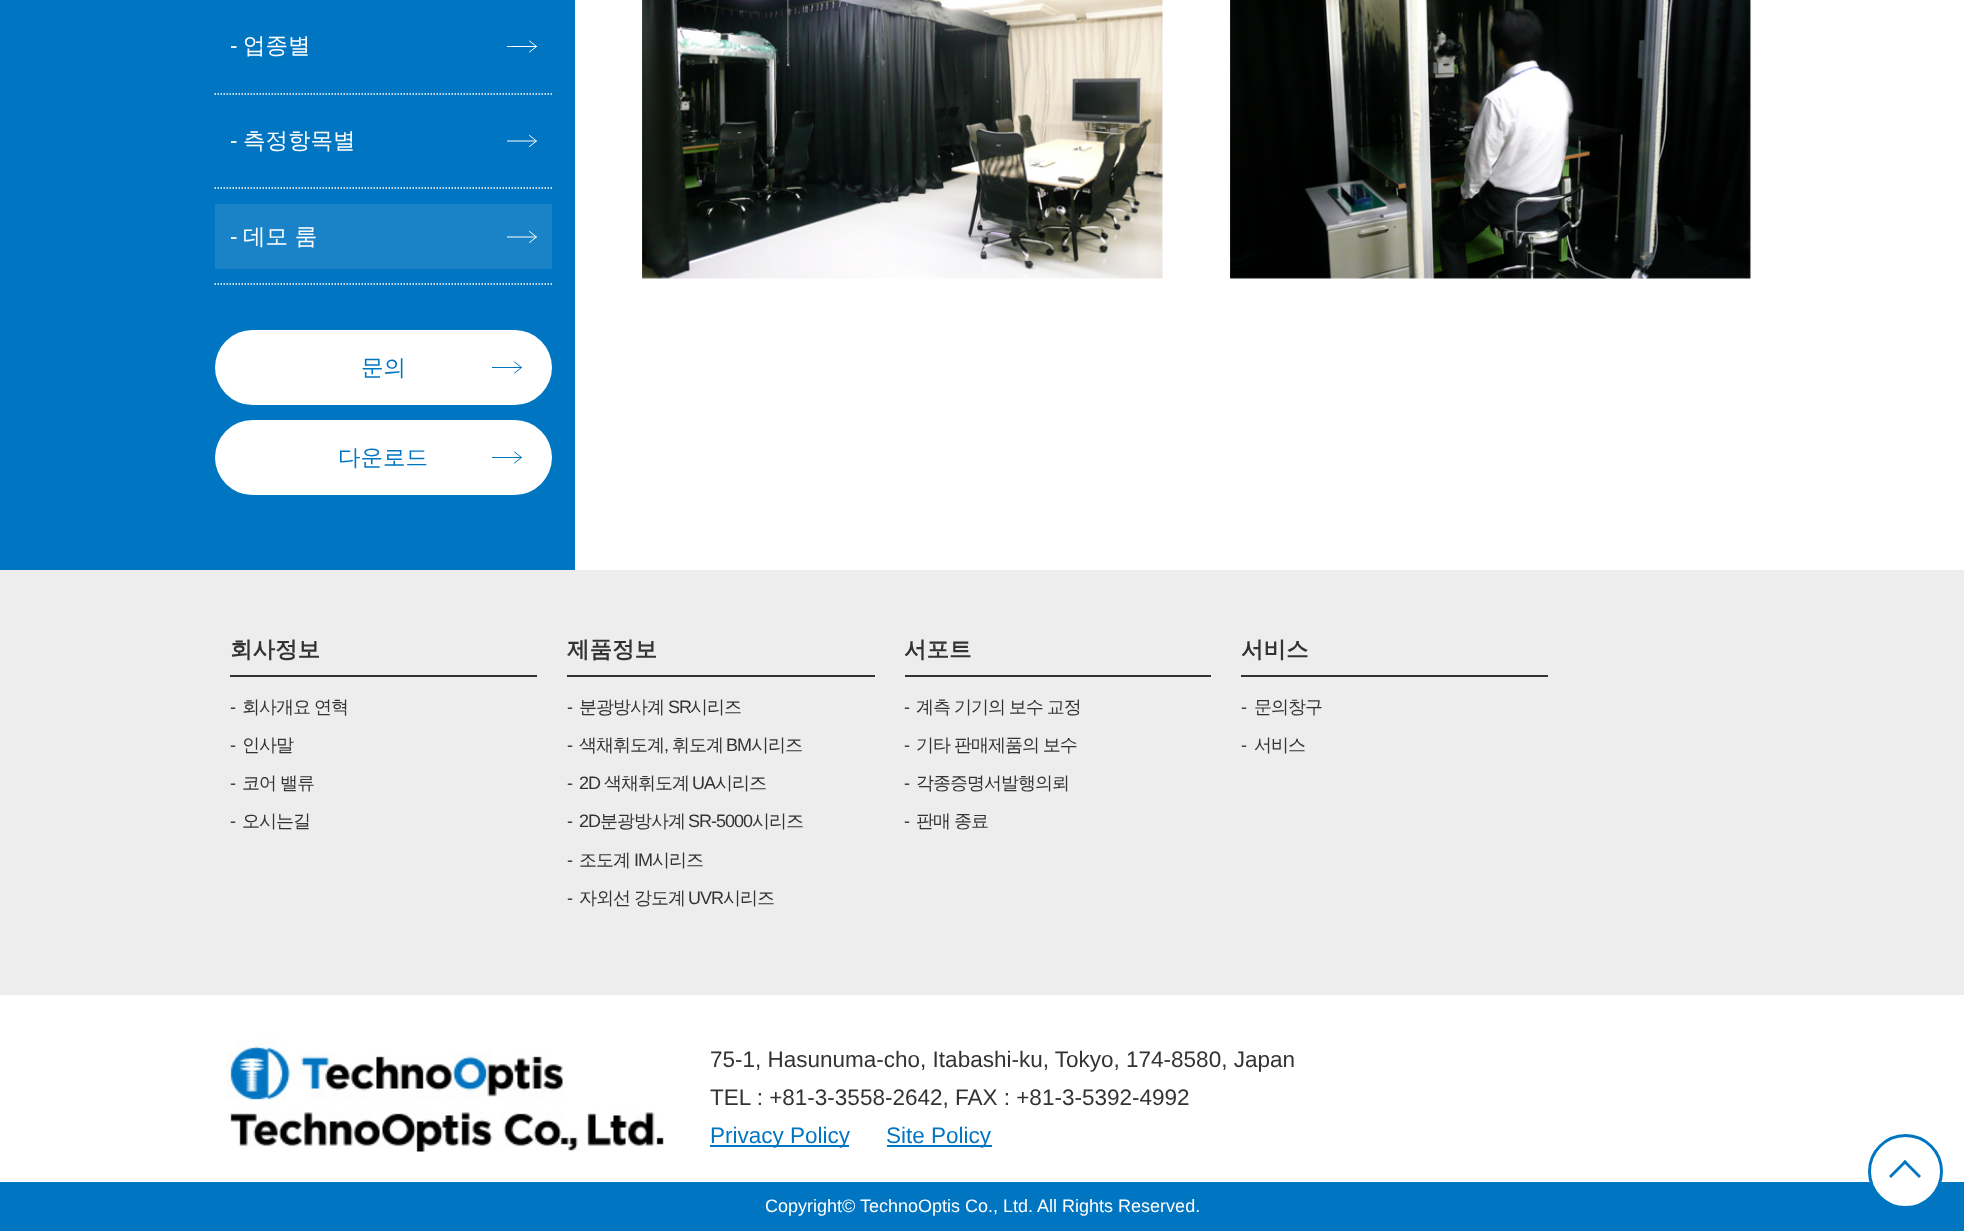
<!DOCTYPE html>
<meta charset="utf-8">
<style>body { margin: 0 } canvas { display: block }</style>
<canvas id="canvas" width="1964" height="1231"></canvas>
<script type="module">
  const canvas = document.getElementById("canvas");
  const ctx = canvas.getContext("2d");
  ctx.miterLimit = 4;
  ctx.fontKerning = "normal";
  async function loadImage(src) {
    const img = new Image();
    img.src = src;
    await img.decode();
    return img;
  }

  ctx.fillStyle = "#ffffff";
  ctx.fillRect(0, 0, 1964, 1231);
  ctx.fillStyle = "#0075c2";
  ctx.fillRect(0, 0, 575, 570);
  ctx.beginPath();
  ctx.moveTo(214.5, 94);
  ctx.lineTo(552, 94);
  ctx.strokeStyle = "#ffffff";
  ctx.lineWidth = 1.5;
  ctx.setLineDash([1.5, 1.5]);
  ctx.stroke();
  ctx.font = "22.5px Liberation Sans";
  ctx.fillStyle = "#ffffff";
  ctx.fillText("-", 230, 53);
  ctx.font = "500 22.5px WenQuanYi Zen Hei";
  ctx.fillText("업종별", 243, 53);
  ctx.fillRect(507, 46, 30, 1);
  ctx.beginPath();
  ctx.moveTo(529.5, 41);
  ctx.lineTo(536.5, 46.5);
  ctx.lineTo(529.5, 52);
  ctx.lineWidth = 1;
  ctx.lineCap = "round";
  ctx.lineJoin = "round";
  ctx.setLineDash([]);
  ctx.stroke();
  ctx.beginPath();
  ctx.moveTo(214.5, 188);
  ctx.lineTo(552, 188);
  ctx.lineWidth = 1.5;
  ctx.lineCap = "butt";
  ctx.lineJoin = "miter";
  ctx.setLineDash([1.5, 1.5]);
  ctx.stroke();
  ctx.font = "22.5px Liberation Sans";
  ctx.fillText("-", 230, 148);
  ctx.font = "500 22.5px WenQuanYi Zen Hei";
  ctx.fillText("측정항목별", 243, 148);
  ctx.beginPath();
  ctx.moveTo(507, 141);
  ctx.lineTo(536.5, 141);
  ctx.lineWidth = 1;
  ctx.setLineDash([]);
  ctx.stroke();
  ctx.beginPath();
  ctx.moveTo(529.5, 135.5);
  ctx.lineTo(536.5, 141);
  ctx.lineTo(529.5, 146.5);
  ctx.lineCap = "round";
  ctx.lineJoin = "round";
  ctx.stroke();
  ctx.beginPath();
  ctx.moveTo(214.5, 284);
  ctx.lineTo(552, 284);
  ctx.lineWidth = 1.5;
  ctx.lineCap = "butt";
  ctx.lineJoin = "miter";
  ctx.setLineDash([1.5, 1.5]);
  ctx.stroke();
  ctx.fillStyle = "#1a83c8";
  ctx.fillRect(215, 204, 337, 65);
  ctx.font = "22.5px Liberation Sans";
  ctx.fillStyle = "#ffffff";
  ctx.fillText("-", 230, 244);
  ctx.font = "500 22.5px WenQuanYi Zen Hei";
  ctx.fillText("데모 룸", 243, 244);
  ctx.beginPath();
  ctx.moveTo(507, 237);
  ctx.lineTo(536.5, 237);
  ctx.lineWidth = 1;
  ctx.setLineDash([]);
  ctx.stroke();
  ctx.beginPath();
  ctx.moveTo(529.5, 231.5);
  ctx.lineTo(536.5, 237);
  ctx.lineTo(529.5, 242.5);
  ctx.lineCap = "round";
  ctx.lineJoin = "round";
  ctx.stroke();
  ctx.beginPath();
  ctx.roundRect(215, 330, 337, 75, 37.5);
  ctx.fill();
  ctx.fillStyle = "#0075c2";
  ctx.fillText("문의", 361, 375);
  ctx.fillRect(492, 367, 30, 1);
  ctx.beginPath();
  ctx.moveTo(514.5, 362);
  ctx.lineTo(521.5, 367.5);
  ctx.lineTo(514.5, 373);
  ctx.strokeStyle = "#0075c2";
  ctx.stroke();
  ctx.fillStyle = "#ffffff";
  ctx.beginPath();
  ctx.roundRect(215, 420, 337, 75, 37.5);
  ctx.fill();
  ctx.fillStyle = "#0075c2";
  ctx.fillText("다운로드", 338, 465);
  ctx.fillRect(492, 457, 30, 1);
  ctx.beginPath();
  ctx.moveTo(514.5, 452);
  ctx.lineTo(521.5, 457.5);
  ctx.lineTo(514.5, 463);
  ctx.stroke();
  ctx.drawImage(await loadImage("img1.png"), 642, 0, 521, 279);
  ctx.drawImage(await loadImage("img2.png"), 1230, 0, 521, 279);
  ctx.fillStyle = "#ededed";
  ctx.fillRect(0, 570, 1964, 425);
  ctx.fillStyle = "#333333";
  ctx.fillRect(230, 675, 307, 2);
  ctx.font = "bold 22.5px WenQuanYi Zen Hei";
  ctx.fillText("회사정보", 230, 657);
  ctx.letterSpacing = "-1px";
  ctx.font = "18px Liberation Sans";
  ctx.fillText("-", 230, 713);
  ctx.wordSpacing = "-0.5px";
  ctx.font = "500 18px WenQuanYi Zen Hei";
  ctx.fillText("회사개요 연혁", 242, 713);
  ctx.wordSpacing = "0px";
  ctx.font = "18px Liberation Sans";
  ctx.fillText("-", 230, 751);
  ctx.font = "500 18px WenQuanYi Zen Hei";
  ctx.fillText("인사말", 242, 751);
  ctx.font = "18px Liberation Sans";
  ctx.fillText("-", 230, 789);
  ctx.wordSpacing = "-0.5px";
  ctx.font = "500 18px WenQuanYi Zen Hei";
  ctx.fillText("코어 밸류", 242, 789);
  ctx.wordSpacing = "0px";
  ctx.font = "18px Liberation Sans";
  ctx.fillText("-", 230, 827);
  ctx.font = "500 18px WenQuanYi Zen Hei";
  ctx.fillText("오시는길", 242, 827);
  ctx.fillRect(567, 675, 308, 2);
  ctx.letterSpacing = "0px";
  ctx.font = "bold 22.5px WenQuanYi Zen Hei";
  ctx.fillText("제품정보", 567, 657);
  ctx.letterSpacing = "-1px";
  ctx.font = "18px Liberation Sans";
  ctx.fillText("-", 567, 713);
  ctx.font = "500 18px WenQuanYi Zen Hei";
  ctx.fillText("분광방사계", 579, 713);
  ctx.font = "18px Liberation Sans";
  ctx.fillText("SR", 668, 713);
  ctx.font = "500 18px WenQuanYi Zen Hei";
  ctx.fillText("시리즈", 690, 713);
  ctx.font = "18px Liberation Sans";
  ctx.fillText("-", 567, 751);
  ctx.font = "500 18px WenQuanYi Zen Hei";
  ctx.fillText("색채휘도계", 579, 751);
  ctx.fillText("휘도계", 672, 751);
  ctx.font = "18px Liberation Sans";
  ctx.fillText("BM", 726, 751);
  ctx.font = "500 18px WenQuanYi Zen Hei";
  ctx.fillText("시리즈", 751, 751);
  ctx.font = "18px Liberation Sans";
  ctx.fillText(",", 664, 751);
  ctx.fillText("-", 567, 789);
  ctx.fillText("2D", 579, 789);
  ctx.font = "500 18px WenQuanYi Zen Hei";
  ctx.fillText("색채휘도계", 604, 789);
  ctx.font = "18px Liberation Sans";
  ctx.fillText("UA", 692, 789);
  ctx.font = "500 18px WenQuanYi Zen Hei";
  ctx.fillText("시리즈", 715, 789);
  ctx.font = "18px Liberation Sans";
  ctx.fillText("-", 567, 827);
  ctx.fillText("2D", 579, 827);
  ctx.font = "500 18px WenQuanYi Zen Hei";
  ctx.fillText("분광방사계", 600, 827);
  ctx.font = "18px Liberation Sans";
  ctx.fillText("SR-5000", 688, 827);
  ctx.font = "500 18px WenQuanYi Zen Hei";
  ctx.fillText("시리즈", 752, 827);
  ctx.font = "18px Liberation Sans";
  ctx.fillText("-", 567, 866);
  ctx.font = "500 18px WenQuanYi Zen Hei";
  ctx.fillText("조도계", 579, 866);
  ctx.font = "18px Liberation Sans";
  ctx.fillText("IM", 634, 866);
  ctx.font = "500 18px WenQuanYi Zen Hei";
  ctx.fillText("시리즈", 652, 866);
  ctx.font = "18px Liberation Sans";
  ctx.fillText("-", 567, 904);
  ctx.wordSpacing = "-0.5px";
  ctx.font = "500 18px WenQuanYi Zen Hei";
  ctx.fillText("자외선 강도계", 579, 904);
  ctx.wordSpacing = "0px";
  ctx.font = "18px Liberation Sans";
  ctx.fillText("UVR", 688, 904);
  ctx.font = "500 18px WenQuanYi Zen Hei";
  ctx.fillText("시리즈", 723, 904);
  ctx.fillRect(905, 675, 306, 2);
  ctx.letterSpacing = "0px";
  ctx.font = "bold 22.5px WenQuanYi Zen Hei";
  ctx.fillText("서포트", 904, 657);
  ctx.letterSpacing = "-1px";
  ctx.font = "18px Liberation Sans";
  ctx.fillText("-", 904, 713);
  ctx.wordSpacing = "-0.5px";
  ctx.font = "500 18px WenQuanYi Zen Hei";
  ctx.fillText("계측 기기의 보수 교정", 916, 713);
  ctx.wordSpacing = "0px";
  ctx.font = "18px Liberation Sans";
  ctx.fillText("-", 904, 751);
  ctx.wordSpacing = "-0.5px";
  ctx.font = "500 18px WenQuanYi Zen Hei";
  ctx.fillText("기타 판매제품의 보수", 916, 751);
  ctx.wordSpacing = "0px";
  ctx.font = "18px Liberation Sans";
  ctx.fillText("-", 904, 789);
  ctx.font = "500 18px WenQuanYi Zen Hei";
  ctx.fillText("각종증명서발행의뢰", 916, 789);
  ctx.font = "18px Liberation Sans";
  ctx.fillText("-", 904, 827);
  ctx.wordSpacing = "-0.5px";
  ctx.font = "500 18px WenQuanYi Zen Hei";
  ctx.fillText("판매 종료", 916, 827);
  ctx.fillRect(1241, 675, 307, 2);
  ctx.letterSpacing = "0px";
  ctx.wordSpacing = "0px";
  ctx.font = "bold 22.5px WenQuanYi Zen Hei";
  ctx.fillText("서비스", 1241, 657);
  ctx.letterSpacing = "-1px";
  ctx.font = "18px Liberation Sans";
  ctx.fillText("-", 1241, 713);
  ctx.font = "500 18px WenQuanYi Zen Hei";
  ctx.fillText("문의창구", 1254, 713);
  ctx.font = "18px Liberation Sans";
  ctx.fillText("-", 1241, 751);
  ctx.font = "500 18px WenQuanYi Zen Hei";
  ctx.fillText("서비스", 1254, 751);
  ctx.drawImage(await loadImage("img3.png"), 226, 1039, 438, 113);
  ctx.letterSpacing = "0px";
  ctx.font = "22.5px Liberation Sans";
  ctx.fillText("75-1, Hasunuma-cho, Itabashi-ku, Tokyo, 174-8580, Japan", 710, 1067);
  ctx.fillText("TEL : +81-3-3558-2642, FAX : +81-3-5392-4992", 710, 1105);
  ctx.fillStyle = "#0075c2";
  ctx.fillRect(710, 1145, 139, 2);
  ctx.fillText("Privacy Policy", 710, 1143);
  ctx.fillRect(887, 1145, 105, 2);
  ctx.fillText("Site Policy", 886, 1143);
  ctx.fillRect(0, 1182, 1964, 49);
  ctx.font = "18px Liberation Sans";
  ctx.fillStyle = "#ffffff";
  ctx.fillText("Copyright© TechnoOptis Co., Ltd. All Rights Reserved.", 765, 1212);
  ctx.beginPath();
  ctx.arc(1905.5, 1171.5, 36, 0, Math.PI * 2);
  ctx.fill();
  ctx.lineWidth = 3;
  ctx.stroke();
  ctx.fillStyle = "#0075c2";
  ctx.beginPath();
  ctx.moveTo(1889, 1176);
  ctx.lineTo(1905, 1160);
  ctx.lineTo(1907, 1162);
  ctx.lineTo(1891, 1178);
  ctx.closePath();
  ctx.fill();
  ctx.beginPath();
  ctx.moveTo(1903, 1162);
  ctx.lineTo(1905, 1160);
  ctx.lineTo(1921, 1176);
  ctx.lineTo(1919, 1178);
  ctx.closePath();
  ctx.fill();
</script>
